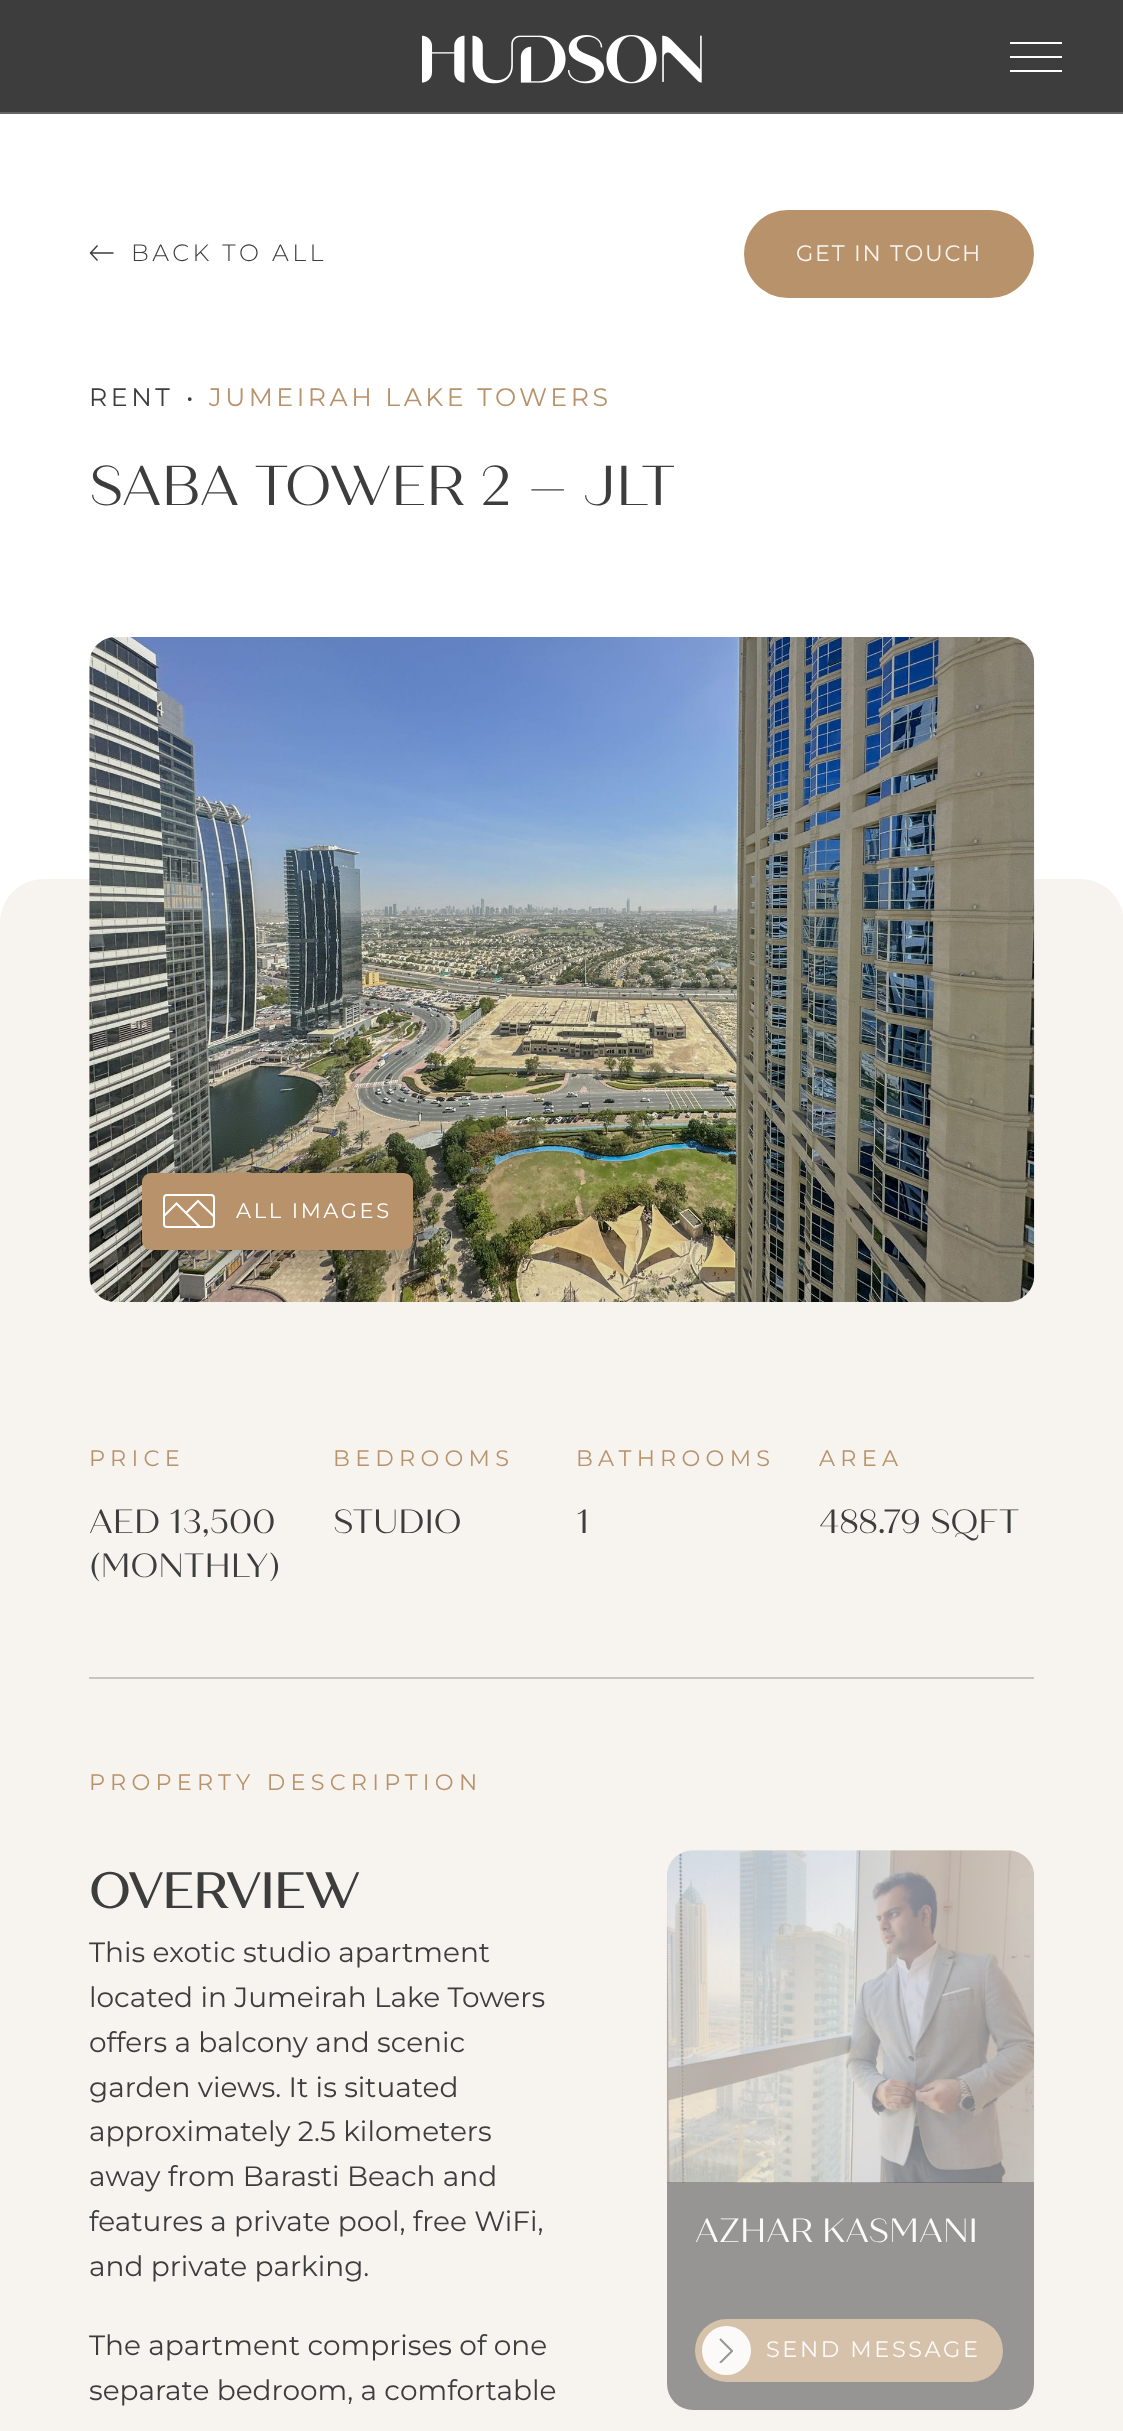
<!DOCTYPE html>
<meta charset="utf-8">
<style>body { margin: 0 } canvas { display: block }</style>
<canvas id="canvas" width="1123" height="2431"></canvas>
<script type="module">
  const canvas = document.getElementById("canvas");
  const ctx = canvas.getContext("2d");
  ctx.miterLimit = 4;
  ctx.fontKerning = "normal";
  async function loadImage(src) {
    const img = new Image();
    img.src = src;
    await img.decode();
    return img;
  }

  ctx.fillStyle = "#ffffff";
  ctx.fillRect(0, 0, 1123, 2431);
  ctx.fillStyle = "#3d3d3d";
  ctx.fillRect(0, 0, 1123, 112);
  ctx.fillStyle = "#646464";
  ctx.fillRect(0, 112, 1123, 2);
  ctx.drawImage(await loadImage("img1.png"), 422, 35, 280, 49);
  ctx.fillStyle = "#ffffff";
  ctx.fillRect(1010, 42, 52, 2);
  ctx.fillRect(1010, 56, 52, 2);
  ctx.fillRect(1010, 70, 52, 2);
  ctx.beginPath();
  ctx.moveTo(113.5, 253);
  ctx.lineTo(90, 253);
  ctx.moveTo(97.5, 260.5);
  ctx.lineTo(90.5, 253);
  ctx.lineTo(97.5, 245.5);
  ctx.strokeStyle = "#3d3d3d";
  ctx.lineWidth = 1.4;
  ctx.stroke();
  ctx.letterSpacing = "3.5px";
  ctx.font = "300 23.75px Montserrat";
  ctx.fillStyle = "#3d3d3d";
  ctx.fillText("BACK TO ALL", 131, 261);
  ctx.fillStyle = "#b8926a";
  ctx.beginPath();
  ctx.roundRect(744, 210, 290, 88, 44);
  ctx.fill();
  ctx.letterSpacing = "1.75px";
  ctx.font = "22.4px Montserrat";
  ctx.fillStyle = "#f7f4f0";
  ctx.fillText("GET IN TOUCH", 796, 261);
  ctx.letterSpacing = "3.5px";
  ctx.font = "25.25px Montserrat";
  ctx.fillStyle = "#3d3d3d";
  ctx.fillText("RENT", 89, 406);
  ctx.fillText("•", 186, 406);
  ctx.fillStyle = "#b8926a";
  ctx.fillText("JUMEIRAH LAKE TOWERS", 209, 406);
  ctx.letterSpacing = "0px";
  ctx.font = "56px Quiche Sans";
  ctx.fillStyle = "#3d3d3d";
  ctx.fillText("SABA TOWER 2 – JLT", 89, 505);
  ctx.fillStyle = "#f7f4f0";
  ctx.beginPath();
  ctx.moveTo(44, 879);
  ctx.lineTo(1080, 879);
  ctx.bezierCurveTo(1104.5, 879, 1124, 898.5, 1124, 923);
  ctx.lineTo(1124, 1442);
  ctx.lineTo(0, 1442);
  ctx.lineTo(0, 923);
  ctx.bezierCurveTo(0, 898.5, 19.5, 879, 44, 879);
  ctx.closePath();
  ctx.fill();
  ctx.drawImage(await loadImage("img2.png"), 89, 637, 946, 665);
  ctx.fillStyle = "rgba(0, 0, 0, 0.3)";
  ctx.filter = "blur(17.5px)";
  ctx.beginPath();
  ctx.roundRect(142, 1173, 285, 91, 16);
  ctx.fill();
  ctx.filter = "none";
  ctx.fillStyle = "#b8926a";
  ctx.beginPath();
  ctx.roundRect(142, 1173, 271, 77, 9);
  ctx.fill();
  ctx.beginPath();
  ctx.roundRect(164, 1195, 50, 32, 3);
  ctx.strokeStyle = "#ffffff";
  ctx.lineWidth = 2;
  ctx.stroke();
  ctx.beginPath();
  ctx.moveTo(163.5, 1216.5);
  ctx.lineTo(176.5, 1203.5);
  ctx.lineTo(200, 1227);
  ctx.moveTo(186, 1213);
  ctx.lineTo(198, 1201);
  ctx.lineTo(214.5, 1217);
  ctx.lineWidth = 2.1;
  ctx.stroke();
  ctx.letterSpacing = "2.6px";
  ctx.font = "21px Montserrat";
  ctx.fillStyle = "#ffffff";
  ctx.fillText("ALL IMAGES", 236, 1218);
  ctx.fillStyle = "#f7f4f0";
  ctx.fillRect(0, 1442, 1123, 989);
  ctx.letterSpacing = "5.25px";
  ctx.font = "22.4px Montserrat";
  ctx.fillStyle = "#b8926a";
  ctx.fillText("PRICE", 89, 1466);
  ctx.letterSpacing = "0px";
  ctx.font = "33.5px Quiche Sans";
  ctx.fillStyle = "#3d3d3d";
  ctx.fillText("AED 13,500", 89, 1533);
  ctx.fillText("(MONTHLY)", 89, 1577);
  ctx.letterSpacing = "5.25px";
  ctx.font = "22.4px Montserrat";
  ctx.fillStyle = "#b8926a";
  ctx.fillText("BEDROOMS", 333, 1466);
  ctx.letterSpacing = "0px";
  ctx.font = "33.5px Quiche Sans";
  ctx.fillStyle = "#3d3d3d";
  ctx.fillText("STUDIO", 333, 1533);
  ctx.letterSpacing = "5.25px";
  ctx.font = "22.4px Montserrat";
  ctx.fillStyle = "#b8926a";
  ctx.fillText("BATHROOMS", 576, 1466);
  ctx.letterSpacing = "0px";
  ctx.font = "33.5px Quiche Sans";
  ctx.fillStyle = "#3d3d3d";
  ctx.fillText("1", 576, 1533);
  ctx.letterSpacing = "5.25px";
  ctx.font = "22.4px Montserrat";
  ctx.fillStyle = "#b8926a";
  ctx.fillText("AREA", 819, 1466);
  ctx.letterSpacing = "0px";
  ctx.font = "33.5px Quiche Sans";
  ctx.fillStyle = "#3d3d3d";
  ctx.fillText("488.79 SQFT", 819, 1533);
  ctx.fillStyle = "#c6c3c0";
  ctx.fillRect(89, 1677, 945, 2);
  ctx.letterSpacing = "5.25px";
  ctx.font = "22.4px Montserrat";
  ctx.fillStyle = "#b8926a";
  ctx.fillText("PROPERTY DESCRIPTION", 89, 1790);
  ctx.letterSpacing = "0px";
  ctx.font = "bold 49px Quiche Sans";
  ctx.fillStyle = "#3d3d3d";
  ctx.fillText("OVERVIEW", 89, 1908);
  ctx.font = "28px Montserrat";
  ctx.fillText("This exotic studio apartment", 89, 1962);
  ctx.fillText("located in Jumeirah Lake Towers", 89, 2007);
  ctx.fillText("offers a balcony and scenic", 89, 2052);
  ctx.fillText("garden views. It is situated", 89, 2097);
  ctx.fillText("approximately 2.5 kilometers", 89, 2141);
  ctx.fillText("away from Barasti Beach and", 89, 2186);
  ctx.fillText("features a private pool, free WiFi,", 89, 2231);
  ctx.fillText("and private parking.", 89, 2276);
  ctx.fillText("The apartment comprises of one", 89, 2355);
  ctx.fillText("separate bedroom, a comfortable", 89, 2400);
  ctx.fillStyle = "#979593";
  ctx.beginPath();
  ctx.roundRect(667, 2182, 367, 228, [0, 0, 26, 26]);
  ctx.fill();
  ctx.drawImage(await loadImage("img3.png"), 666, 1850, 369, 333);
  ctx.font = "33.5px Quiche Sans";
  ctx.fillStyle = "#fbfaf8";
  ctx.fillText("AZHAR KASMANI", 695, 2242);
  ctx.fillStyle = "#d6c1ab";
  ctx.beginPath();
  ctx.roundRect(695, 2319, 308, 63, 31.5);
  ctx.fill();
  ctx.fillStyle = "#fbfaf8";
  ctx.beginPath();
  ctx.arc(726.5, 2350.5, 24.5, 0, Math.PI * 2);
  ctx.fill();
  ctx.save();
  ctx.beginPath();
  ctx.rect(719, 2338, 14, 25);
  ctx.clip();
  ctx.beginPath();
  ctx.moveTo(720, 2363);
  ctx.lineTo(732, 2351);
  ctx.lineTo(720, 2339);
  ctx.strokeStyle = "#979593";
  ctx.lineWidth = 2;
  ctx.stroke();
  ctx.restore();
  ctx.letterSpacing = "2.6px";
  ctx.font = "22.4px Montserrat";
  ctx.fillText("SEND MESSAGE", 766, 2357);
</script>
